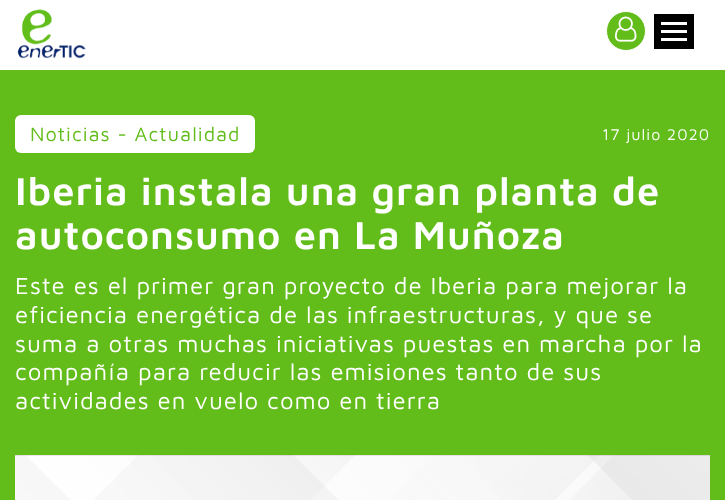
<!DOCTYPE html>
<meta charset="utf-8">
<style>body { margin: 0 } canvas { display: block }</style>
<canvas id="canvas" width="725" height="500"></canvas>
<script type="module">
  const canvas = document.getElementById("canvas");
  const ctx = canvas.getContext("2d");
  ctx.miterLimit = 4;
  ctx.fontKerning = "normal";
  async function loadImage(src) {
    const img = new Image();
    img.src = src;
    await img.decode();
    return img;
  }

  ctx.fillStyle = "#ffffff";
  ctx.fillRect(0, 0, 725, 500);
  ctx.drawImage(await loadImage("img1.png"), 17, 9, 69, 50);
  ctx.fillStyle = "#62bd1b";
  ctx.beginPath();
  ctx.arc(626, 31, 19.5, 0, Math.PI * 2);
  ctx.fill();
  ctx.strokeStyle = "#ffffff";
  ctx.stroke();
  ctx.drawImage(await loadImage("img2.png"), 615, 16, 22, 26);
  ctx.fillStyle = "#000000";
  ctx.fillRect(654, 14, 40, 35);
  ctx.fillStyle = "#ffffff";
  ctx.fillRect(661, 38, 26, 3);
  ctx.fillRect(661, 30, 26, 3);
  ctx.fillRect(661, 22, 26, 3);
  ctx.fillStyle = "#62bd1b";
  ctx.fillRect(0, 70, 725, 430);
  ctx.fillStyle = "#ffffff";
  ctx.beginPath();
  ctx.roundRect(15, 115, 240, 38, 6);
  ctx.fill();
  ctx.letterSpacing = "1px";
  ctx.font = "20px Maven Pro";
  ctx.fillStyle = "#62bd1b";
  ctx.fillText("Noticias - Actualidad", 30, 141);
  ctx.font = "16px Maven Pro";
  ctx.fillStyle = "#ffffff";
  ctx.fillText("17 julio 2020", 602, 140);
  ctx.font = "600 40px Maven Pro";
  ctx.fillText("Iberia instala una gran planta de", 15, 205);
  ctx.fillText("autoconsumo en La Muñoza", 15, 249);
  ctx.font = "24px Maven Pro";
  ctx.fillText("Este es el primer gran proyecto de Iberia para mejorar la", 15, 294);
  ctx.fillText("eficiencia energética de las infraestructuras, y que se", 15, 323);
  ctx.fillText("suma a otras muchas iniciativas puestas en marcha por la", 15, 352);
  ctx.fillText("compañía para reducir las emisiones tanto de sus", 15, 380);
  ctx.fillText("actividades en vuelo como en tierra", 15, 409);
  ctx.drawImage(await loadImage("img3.png"), 15, 455, 695, 45);
</script>
